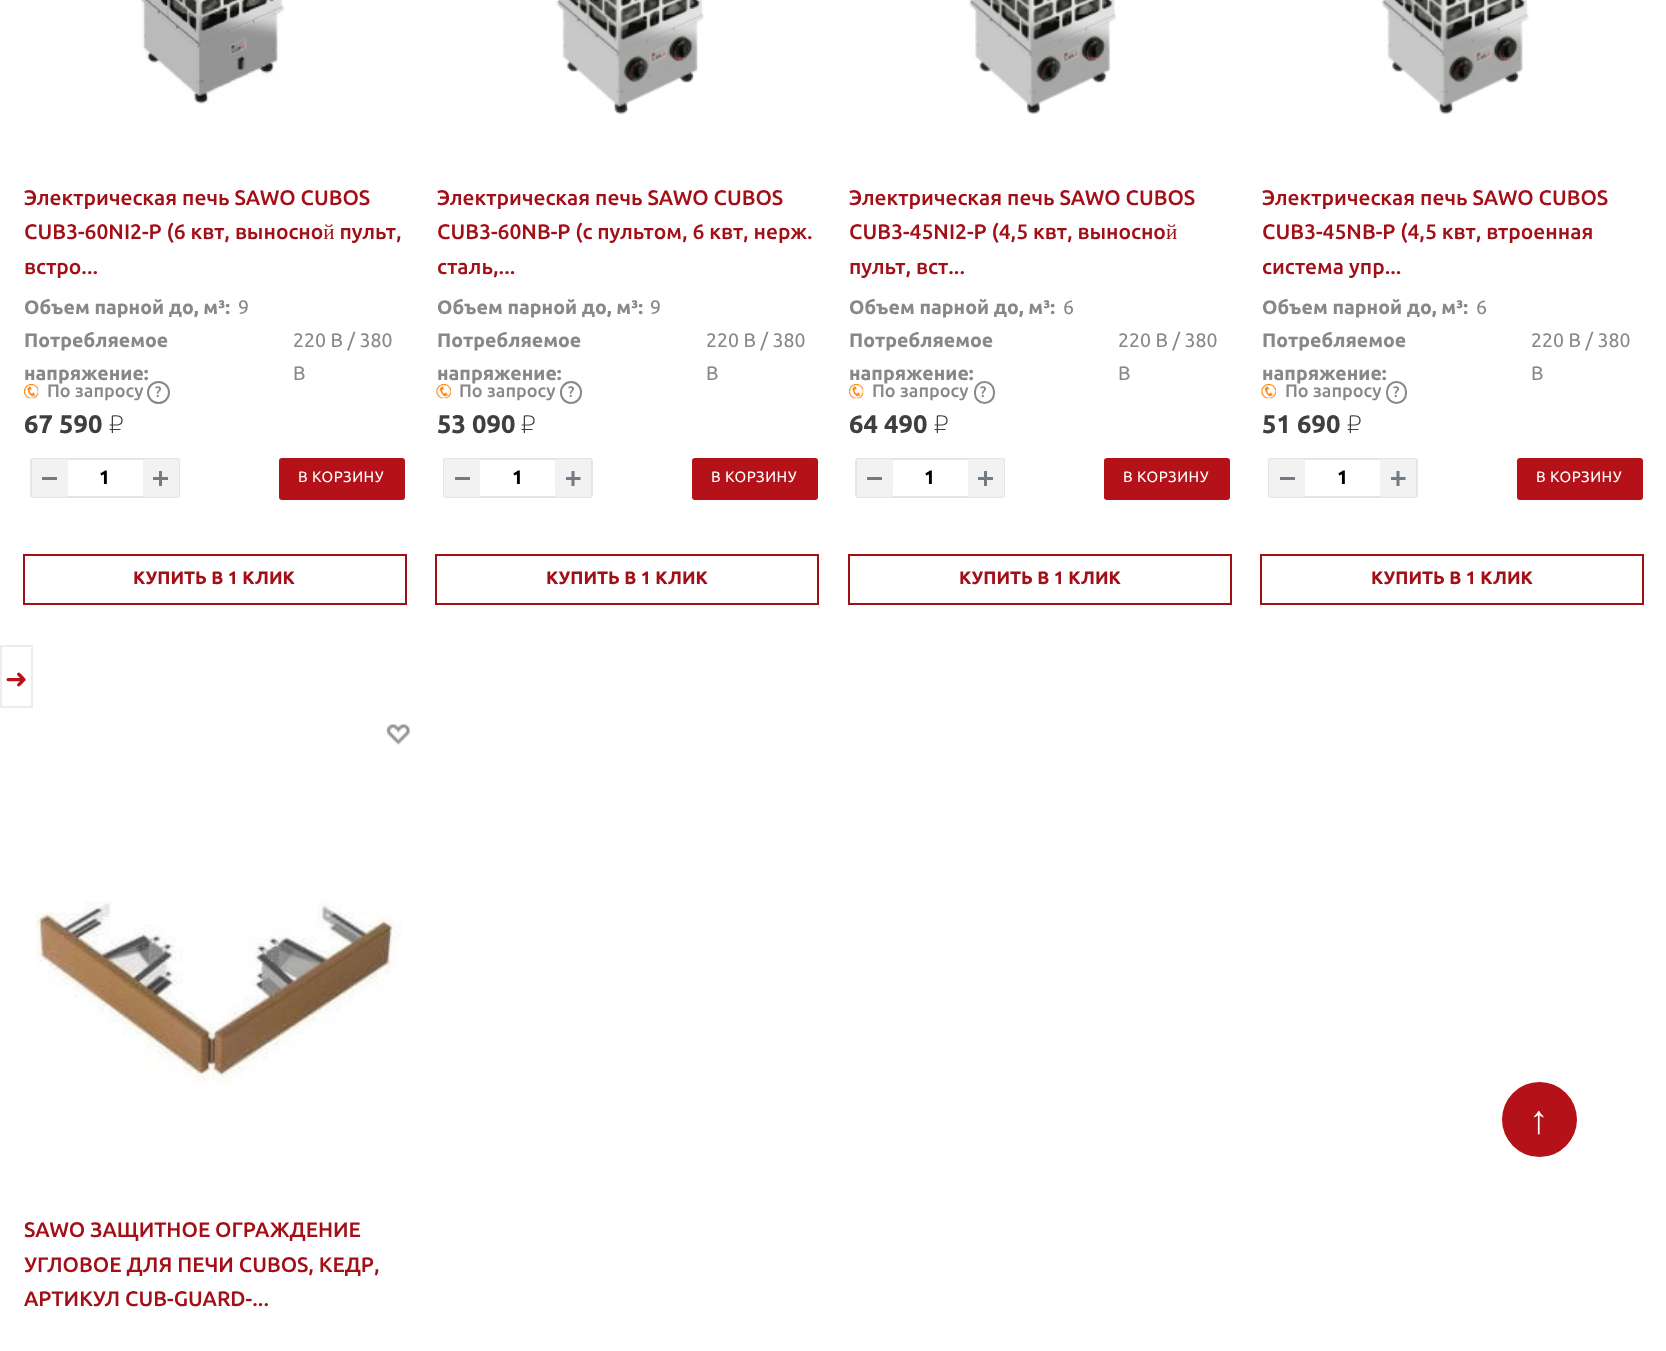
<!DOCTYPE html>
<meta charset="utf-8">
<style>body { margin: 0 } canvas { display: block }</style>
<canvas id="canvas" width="1666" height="1351"></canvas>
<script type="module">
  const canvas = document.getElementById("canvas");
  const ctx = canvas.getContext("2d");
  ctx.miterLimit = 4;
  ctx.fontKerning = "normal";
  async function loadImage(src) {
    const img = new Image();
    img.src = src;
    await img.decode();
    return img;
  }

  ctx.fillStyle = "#ffffff";
  ctx.fillRect(0, 0, 1666, 1351);
  ctx.strokeStyle = "#ececec";
  ctx.lineWidth = 2;
  ctx.strokeRect(1, 646, 31, 61);
  ctx.font = "27px DejaVu Sans";
  ctx.fillStyle = "#b9121b";
  ctx.fillText("➜", 5, 688);
  ctx.drawImage(await loadImage("img1.png"), 140, 0, 145, 104);
  ctx.font = "500 21px Ubuntu";
  ctx.fillStyle = "#a30f17";
  ctx.fillText("Электрическая печь SAWO CUBOS", 24, 205);
  ctx.fillText("CUB3-60NI2-P (6 квт, выносной пульт,", 24, 239);
  ctx.fillText("встро...", 24, 274);
  ctx.font = "bold 19.5px Ubuntu";
  ctx.fillStyle = "#888888";
  ctx.fillText("Объем парной до, м³:", 24, 314);
  ctx.font = "19.5px Ubuntu";
  ctx.fillText("9", 238, 314);
  ctx.font = "bold 19.5px Ubuntu";
  ctx.fillText("Потребляемое", 24, 347);
  ctx.fillText("напряжение:", 24, 380);
  ctx.font = "19.5px Ubuntu";
  ctx.fillText("220 В / 380", 293, 347);
  ctx.fillText("В", 293, 380);
  ctx.drawImage(await loadImage("img2.png"), 24, 384, 15, 15);
  ctx.font = "500 18px Ubuntu";
  ctx.fillText("По запросу", 47, 397);
  ctx.beginPath();
  ctx.arc(158.5, 392.5, 10.5, 0, Math.PI * 2);
  ctx.strokeStyle = "#888888";
  ctx.stroke();
  ctx.font = "500 15px Ubuntu";
  ctx.fillText("?", 155, 397);
  ctx.font = "bold 25.5px Ubuntu";
  ctx.fillStyle = "#3f3f3f";
  ctx.fillText("67 590", 24, 433);
  ctx.font = "200 25.5px Ubuntu";
  ctx.fillText("₽", 109, 433);
  ctx.beginPath();
  ctx.roundRect(31, 459, 148, 38, 2);
  ctx.strokeStyle = "#e5e5e5";
  ctx.stroke();
  ctx.fillStyle = "#f2f2f2";
  ctx.beginPath();
  ctx.roundRect(32, 459, 36, 38, 3);
  ctx.fill();
  ctx.fillStyle = "#727a84";
  ctx.fillRect(42, 477, 15, 3);
  ctx.font = "bold 19.5px Ubuntu";
  ctx.fillStyle = "#000000";
  ctx.fillText("1", 99, 484);
  ctx.fillStyle = "#f2f2f2";
  ctx.beginPath();
  ctx.roundRect(143, 459, 36, 38, 3);
  ctx.fill();
  ctx.drawImage(await loadImage("img3.png"), 153, 471, 15, 15);
  ctx.fillStyle = "#b51119";
  ctx.beginPath();
  ctx.roundRect(279, 458, 126, 42, 3);
  ctx.fill();
  ctx.letterSpacing = "0.5px";
  ctx.font = "15px Ubuntu";
  ctx.fillStyle = "#ffffff";
  ctx.fillText("В КОРЗИНУ", 298, 482);
  ctx.strokeStyle = "#a30f17";
  ctx.strokeRect(24, 555, 382, 49);
  ctx.letterSpacing = "0px";
  ctx.font = "bold 18px Ubuntu";
  ctx.fillStyle = "#a30f17";
  ctx.fillText("КУПИТЬ В 1 КЛИК", 133, 584);
  ctx.drawImage(await loadImage("img4.png"), 556, 0, 148, 115);
  ctx.font = "500 21px Ubuntu";
  ctx.fillText("Электрическая печь SAWO CUBOS", 437, 205);
  ctx.fillText("CUB3-60NB-P (с пультом, 6 квт, нерж.", 437, 239);
  ctx.fillText("сталь,...", 437, 274);
  ctx.font = "bold 19.5px Ubuntu";
  ctx.fillStyle = "#888888";
  ctx.fillText("Объем парной до, м³:", 437, 314);
  ctx.font = "19.5px Ubuntu";
  ctx.fillText("9", 650, 314);
  ctx.font = "bold 19.5px Ubuntu";
  ctx.fillText("Потребляемое", 437, 347);
  ctx.fillText("напряжение:", 437, 380);
  ctx.font = "19.5px Ubuntu";
  ctx.fillText("220 В / 380", 706, 347);
  ctx.fillText("В", 706, 380);
  ctx.drawImage(await loadImage("img5.png"), 436, 384, 15, 15);
  ctx.font = "500 18px Ubuntu";
  ctx.fillText("По запросу", 459, 397);
  ctx.beginPath();
  ctx.roundRect(561, 382, 20, 21, 10);
  ctx.strokeStyle = "#888888";
  ctx.stroke();
  ctx.font = "500 15px Ubuntu";
  ctx.fillText("?", 568, 397);
  ctx.font = "bold 25.5px Ubuntu";
  ctx.fillStyle = "#3f3f3f";
  ctx.fillText("53 090", 437, 433);
  ctx.font = "200 25.5px Ubuntu";
  ctx.fillText("₽", 521, 433);
  ctx.beginPath();
  ctx.roundRect(444, 459, 148, 38, 2);
  ctx.strokeStyle = "#e5e5e5";
  ctx.stroke();
  ctx.fillStyle = "#f2f2f2";
  ctx.beginPath();
  ctx.roundRect(444, 459, 36, 38, 3);
  ctx.fill();
  ctx.fillStyle = "#727a84";
  ctx.fillRect(455, 477, 15, 3);
  ctx.font = "bold 19.5px Ubuntu";
  ctx.fillStyle = "#000000";
  ctx.fillText("1", 512, 484);
  ctx.fillStyle = "#f2f2f2";
  ctx.beginPath();
  ctx.roundRect(555, 459, 36, 38, 3);
  ctx.fill();
  ctx.drawImage(await loadImage("img6.png"), 566, 471, 15, 15);
  ctx.fillStyle = "#b51119";
  ctx.beginPath();
  ctx.roundRect(692, 458, 126, 42, 3);
  ctx.fill();
  ctx.letterSpacing = "0.5px";
  ctx.font = "15px Ubuntu";
  ctx.fillStyle = "#ffffff";
  ctx.fillText("В КОРЗИНУ", 711, 482);
  ctx.strokeStyle = "#a30f17";
  ctx.strokeRect(436, 555, 382, 49);
  ctx.letterSpacing = "0px";
  ctx.font = "bold 18px Ubuntu";
  ctx.fillStyle = "#a30f17";
  ctx.fillText("КУПИТЬ В 1 КЛИК", 546, 584);
  ctx.drawImage(await loadImage("img7.png"), 969, 0, 147, 115);
  ctx.font = "500 21px Ubuntu";
  ctx.fillText("Электрическая печь SAWO CUBOS", 849, 205);
  ctx.fillText("CUB3-45NI2-P (4,5 квт, выносной", 849, 239);
  ctx.fillText("пульт, вст...", 849, 274);
  ctx.font = "bold 19.5px Ubuntu";
  ctx.fillStyle = "#888888";
  ctx.fillText("Объем парной до, м³:", 849, 314);
  ctx.font = "19.5px Ubuntu";
  ctx.fillText("6", 1063, 314);
  ctx.font = "bold 19.5px Ubuntu";
  ctx.fillText("Потребляемое", 849, 347);
  ctx.fillText("напряжение:", 849, 380);
  ctx.font = "19.5px Ubuntu";
  ctx.fillText("220 В / 380", 1118, 347);
  ctx.fillText("В", 1118, 380);
  ctx.drawImage(await loadImage("img2.png"), 849, 384, 15, 15);
  ctx.font = "500 18px Ubuntu";
  ctx.fillText("По запросу", 872, 397);
  ctx.beginPath();
  ctx.roundRect(975, 382, 19, 21, 9.5);
  ctx.strokeStyle = "#888888";
  ctx.stroke();
  ctx.font = "500 15px Ubuntu";
  ctx.fillText("?", 980, 397);
  ctx.font = "bold 25.5px Ubuntu";
  ctx.fillStyle = "#3f3f3f";
  ctx.fillText("64 490", 849, 433);
  ctx.font = "200 25.5px Ubuntu";
  ctx.fillText("₽", 934, 433);
  ctx.beginPath();
  ctx.roundRect(856, 459, 148, 38, 2);
  ctx.strokeStyle = "#e5e5e5";
  ctx.stroke();
  ctx.fillStyle = "#f2f2f2";
  ctx.beginPath();
  ctx.roundRect(857, 459, 36, 38, 3);
  ctx.fill();
  ctx.fillStyle = "#727a84";
  ctx.fillRect(867, 477, 15, 3);
  ctx.font = "bold 19.5px Ubuntu";
  ctx.fillStyle = "#000000";
  ctx.fillText("1", 924, 484);
  ctx.fillStyle = "#f2f2f2";
  ctx.beginPath();
  ctx.roundRect(968, 459, 36, 38, 3);
  ctx.fill();
  ctx.drawImage(await loadImage("img3.png"), 978, 471, 15, 15);
  ctx.fillStyle = "#b51119";
  ctx.beginPath();
  ctx.roundRect(1104, 458, 126, 42, 3);
  ctx.fill();
  ctx.letterSpacing = "0.5px";
  ctx.font = "15px Ubuntu";
  ctx.fillStyle = "#ffffff";
  ctx.fillText("В КОРЗИНУ", 1123, 482);
  ctx.strokeStyle = "#a30f17";
  ctx.strokeRect(849, 555, 382, 49);
  ctx.letterSpacing = "0px";
  ctx.font = "bold 18px Ubuntu";
  ctx.fillStyle = "#a30f17";
  ctx.fillText("КУПИТЬ В 1 КЛИК", 959, 584);
  ctx.drawImage(await loadImage("img4.png"), 1381, 0, 148, 115);
  ctx.font = "500 21px Ubuntu";
  ctx.fillText("Электрическая печь SAWO CUBOS", 1262, 205);
  ctx.fillText("CUB3-45NB-P (4,5 квт, втроенная", 1262, 239);
  ctx.fillText("система упр...", 1262, 274);
  ctx.font = "bold 19.5px Ubuntu";
  ctx.fillStyle = "#888888";
  ctx.fillText("Объем парной до, м³:", 1262, 314);
  ctx.font = "19.5px Ubuntu";
  ctx.fillText("6", 1476, 314);
  ctx.font = "bold 19.5px Ubuntu";
  ctx.fillText("Потребляемое", 1262, 347);
  ctx.fillText("напряжение:", 1262, 380);
  ctx.font = "19.5px Ubuntu";
  ctx.fillText("220 В / 380", 1531, 347);
  ctx.fillText("В", 1531, 380);
  ctx.drawImage(await loadImage("img8.png"), 1261, 384, 15, 15);
  ctx.font = "500 18px Ubuntu";
  ctx.fillText("По запросу", 1285, 397);
  ctx.beginPath();
  ctx.roundRect(1387, 382, 19, 21, 9.5);
  ctx.strokeStyle = "#888888";
  ctx.stroke();
  ctx.font = "500 15px Ubuntu";
  ctx.fillText("?", 1393, 397);
  ctx.font = "bold 25.5px Ubuntu";
  ctx.fillStyle = "#3f3f3f";
  ctx.fillText("51 690", 1262, 433);
  ctx.font = "200 25.5px Ubuntu";
  ctx.fillText("₽", 1347, 433);
  ctx.beginPath();
  ctx.roundRect(1269, 459, 148, 38, 2);
  ctx.strokeStyle = "#e5e5e5";
  ctx.stroke();
  ctx.fillStyle = "#f2f2f2";
  ctx.beginPath();
  ctx.roundRect(1269, 459, 36, 38, 3);
  ctx.fill();
  ctx.fillStyle = "#727a84";
  ctx.fillRect(1280, 477, 15, 3);
  ctx.font = "bold 19.5px Ubuntu";
  ctx.fillStyle = "#000000";
  ctx.fillText("1", 1337, 484);
  ctx.fillStyle = "#f2f2f2";
  ctx.beginPath();
  ctx.roundRect(1380, 459, 36, 38, 3);
  ctx.fill();
  ctx.drawImage(await loadImage("img6.png"), 1391, 471, 15, 15);
  ctx.fillStyle = "#b51119";
  ctx.beginPath();
  ctx.roundRect(1517, 458, 126, 42, 3);
  ctx.fill();
  ctx.letterSpacing = "0.5px";
  ctx.font = "15px Ubuntu";
  ctx.fillStyle = "#ffffff";
  ctx.fillText("В КОРЗИНУ", 1536, 482);
  ctx.strokeStyle = "#a30f17";
  ctx.strokeRect(1261, 555, 382, 49);
  ctx.letterSpacing = "0px";
  ctx.font = "bold 18px Ubuntu";
  ctx.fillStyle = "#a30f17";
  ctx.fillText("КУПИТЬ В 1 КЛИК", 1371, 584);
  ctx.drawImage(await loadImage("img9.png"), 386, 724, 24, 21);
  ctx.drawImage(await loadImage("img10.png"), 35, 901, 367, 183);
  ctx.font = "500 21px Ubuntu";
  ctx.fillText("SAWO ЗАЩИТНОЕ ОГРАЖДЕНИЕ", 24, 1237);
  ctx.fillText("УГЛОВОЕ ДЛЯ ПЕЧИ CUBOS, КЕДР,", 24, 1272);
  ctx.fillText("АРТИКУЛ CUB-GUARD-...", 24, 1306);
  ctx.fillStyle = "#b51119";
  ctx.beginPath();
  ctx.arc(1539.5, 1119.5, 37.5, 0, Math.PI * 2);
  ctx.fill();
  ctx.font = "39px Liberation Sans";
  ctx.fillStyle = "#ffffff";
  ctx.fillText("↑", 1529, 1133);
</script>
